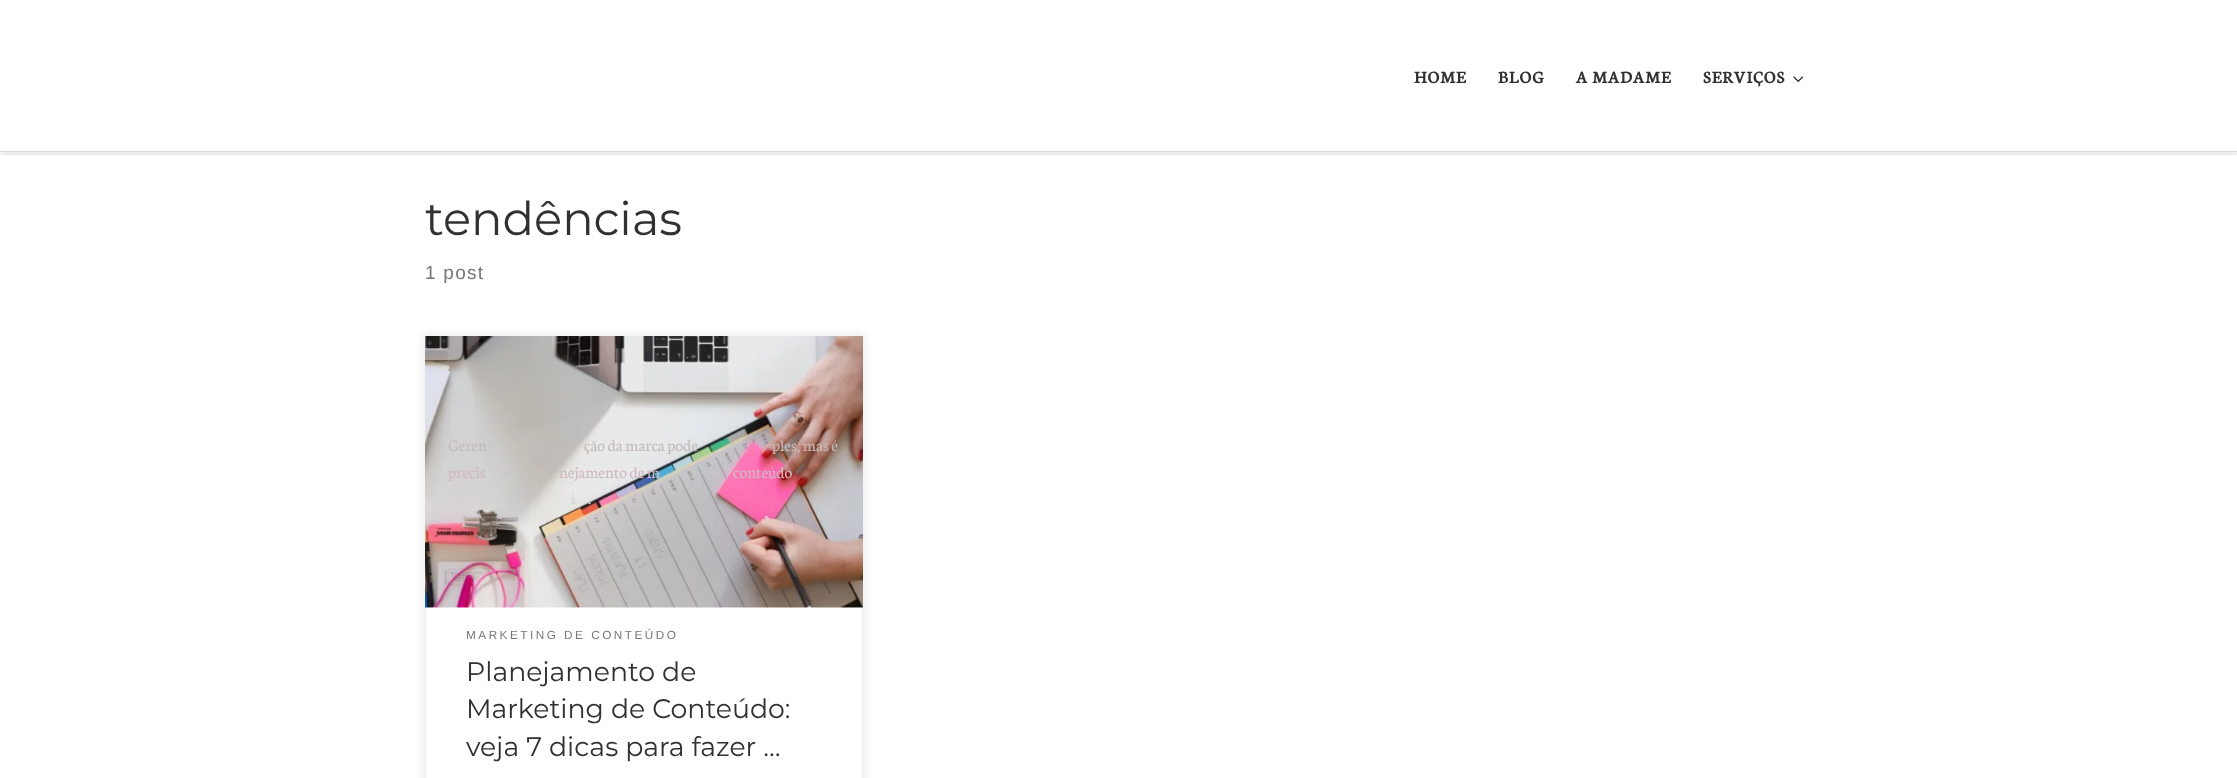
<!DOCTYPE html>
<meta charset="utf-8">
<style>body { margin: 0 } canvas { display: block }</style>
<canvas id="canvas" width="2237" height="778"></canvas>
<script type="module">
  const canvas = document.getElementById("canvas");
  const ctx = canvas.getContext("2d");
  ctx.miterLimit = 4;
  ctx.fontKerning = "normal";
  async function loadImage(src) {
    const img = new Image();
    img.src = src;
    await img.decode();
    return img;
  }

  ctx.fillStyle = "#ffffff";
  ctx.fillRect(0, 0, 2237, 778);
  ctx.fillStyle = "rgba(102, 102, 102, 0.08)";
  ctx.filter = "blur(1px)";
  ctx.beginPath();
  ctx.rect(0, 3, 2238, 152);
  ctx.fill();
  ctx.filter = "none";
  ctx.fillStyle = "#ffffff";
  ctx.fillRect(0, 2, 2237, 151);
  ctx.fillStyle = "#ececec";
  ctx.fillRect(0, 151, 2237, 1);
  ctx.fillStyle = "rgba(255, 255, 255, 0.15)";
  ctx.beginPath();
  ctx.moveTo(0, 151);
  ctx.lineTo(0, 153);
  ctx.lineTo(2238, 153);
  ctx.lineTo(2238, 1);
  ctx.lineTo(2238, 151);
  ctx.closePath();
  ctx.fill();
  ctx.save();
  ctx.beginPath();
  ctx.rect(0, 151, 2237, 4);
  ctx.clip();
  ctx.fillStyle = "rgba(0, 0, 0, 0.2)";
  ctx.filter = "blur(3px)";
  ctx.beginPath();
  ctx.rect(0, 0, 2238, 151);
  ctx.fill();
  ctx.filter = "none";
  ctx.restore();
  ctx.letterSpacing = "1.25px";
  ctx.font = "bold 17.75px Neuton";
  ctx.fillStyle = "#303133";
  ctx.fillText("HOME", 1414, 83);
  ctx.fillText("BLOG", 1498, 83);
  ctx.fillText("A MADAME", 1576, 83);
  ctx.fillText("SERVIÇOS", 1703, 83);
  ctx.drawImage(await loadImage("img1.png"), 1793, 76, 11, 7);
  ctx.letterSpacing = "0px";
  ctx.font = "100 46.5px Montserrat";
  ctx.fillText("tendências", 425, 235);
  ctx.letterSpacing = "1.25px";
  ctx.font = "19px Liberation Sans";
  ctx.fillStyle = "#777777";
  ctx.fillText("1 post", 425, 279);
  ctx.fillStyle = "rgba(0, 0, 0, 0.07)";
  ctx.filter = "blur(4px)";
  ctx.beginPath();
  ctx.rect(423, 334, 442, 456);
  ctx.fill();
  ctx.filter = "none";
  ctx.fillStyle = "#ffffff";
  ctx.fillRect(426, 607, 436, 171);
  ctx.strokeStyle = "#efefef";
  ctx.strokeRect(425.5, 336.5, 437, 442);
  ctx.drawImage(await loadImage("img2.png"), 425, 336, 438, 272);
  ctx.letterSpacing = "0px";
  ctx.font = "17px Neuton";
  ctx.fillStyle = "#c5bbb8";
  ctx.fillText("Geren", 448, 451);
  ctx.fillText("ção da marca pode", 584, 451);
  ctx.fillText("ples, mas é", 772, 451);
  ctx.fillStyle = "#cfb9c4";
  ctx.fillText("precis", 448, 478);
  ctx.fillText("nejamento de m", 559, 478);
  ctx.fillText("conteúdo", 733, 478);
  ctx.fillStyle = "#d7d5d4";
  ctx.fillText("i", 571, 504);
  ctx.fillText(".", 588, 504);
  ctx.letterSpacing = "2.5px";
  ctx.font = "11.75px Liberation Sans";
  ctx.fillStyle = "#777777";
  ctx.fillText("MARKETING DE CONTEÚDO", 466, 639);
  ctx.letterSpacing = "0px";
  ctx.font = "100 26.75px Montserrat";
  ctx.fillStyle = "#303133";
  ctx.fillText("Planejamento de", 466, 681);
  ctx.fillText("Marketing de Conteúdo:", 466, 718);
  ctx.fillText("veja 7 dicas para fazer …", 466, 756);
</script>
